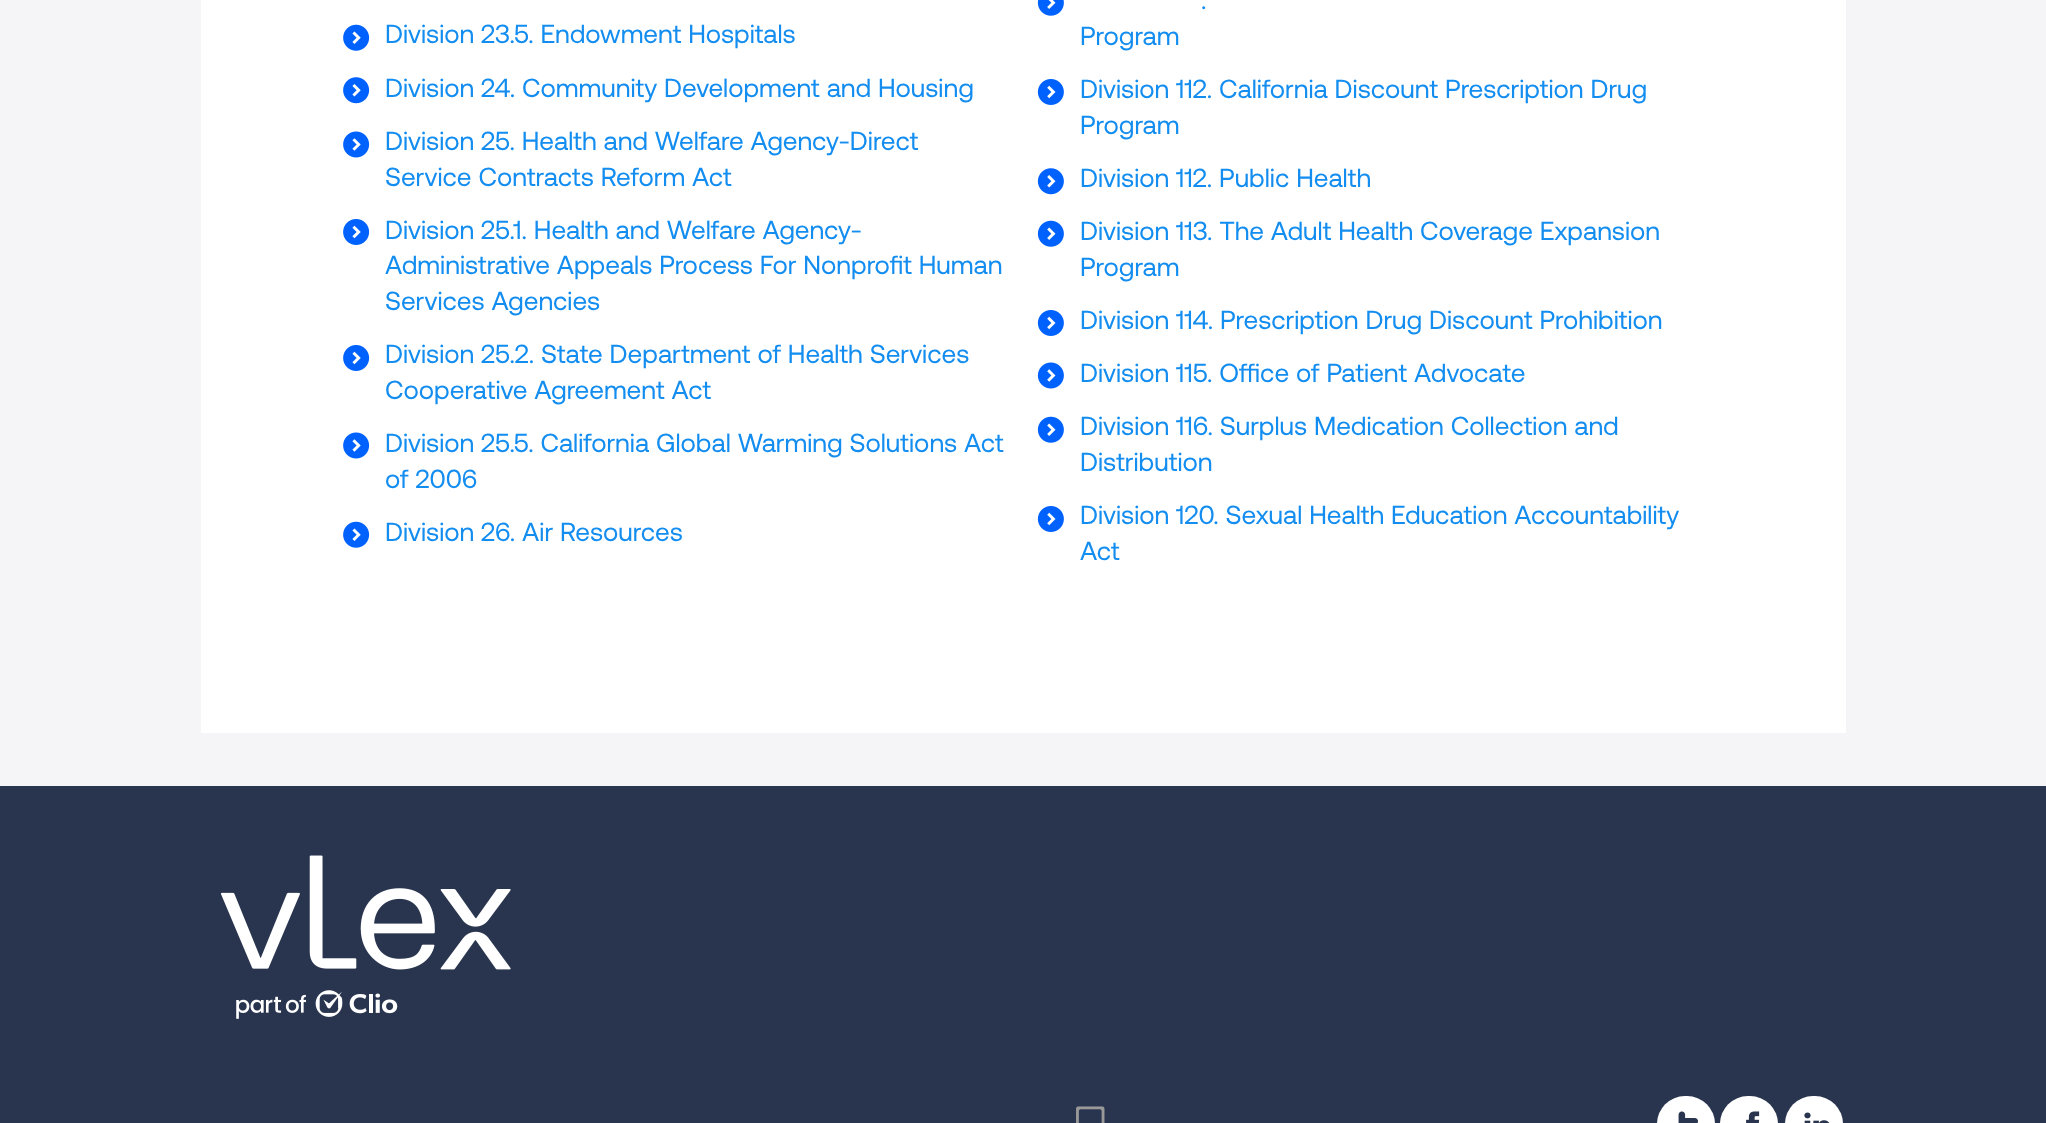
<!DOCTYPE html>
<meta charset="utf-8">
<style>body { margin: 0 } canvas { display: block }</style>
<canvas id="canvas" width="2046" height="1123"></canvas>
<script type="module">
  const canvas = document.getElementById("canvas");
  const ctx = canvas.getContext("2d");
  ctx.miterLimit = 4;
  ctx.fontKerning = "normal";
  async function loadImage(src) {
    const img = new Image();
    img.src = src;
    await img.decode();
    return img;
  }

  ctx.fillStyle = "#f5f5f7";
  ctx.fillRect(0, 0, 2046, 1123);
  ctx.fillStyle = "#ffffff";
  ctx.fillRect(201, 0, 1645, 733);
  ctx.drawImage(await loadImage("img1.png"), 343, 24, 27, 27);
  ctx.font = "26.25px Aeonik";
  ctx.fillStyle = "#138df0";
  ctx.fillText("Division 23.5. Endowment Hospitals", 385, 43);
  ctx.drawImage(await loadImage("img2.png"), 1037, 0, 27, 16);
  ctx.fillText(".", 1201, 9);
  ctx.fillText("Program", 1080, 45);
  ctx.drawImage(await loadImage("img3.png"), 343, 77, 27, 27);
  ctx.fillText("Division 24. Community Development and Housing", 385, 97);
  ctx.drawImage(await loadImage("img4.png"), 1037, 79, 27, 26);
  ctx.fillText("Division 112. California Discount Prescription Drug", 1080, 98);
  ctx.fillText("Program", 1080, 134);
  ctx.drawImage(await loadImage("img5.png"), 343, 131, 27, 27);
  ctx.fillText("Division 25. Health and Welfare Agency-Direct", 385, 150);
  ctx.fillText("Service Contracts Reform Act", 385, 186);
  ctx.drawImage(await loadImage("img6.png"), 1037, 168, 27, 27);
  ctx.fillText("Division 112. Public Health", 1080, 187);
  ctx.drawImage(await loadImage("img7.png"), 343, 219, 27, 26);
  ctx.fillText("Division 25.1. Health and Welfare Agency-", 385, 239);
  ctx.fillText("Administrative Appeals Process For Nonprofit Human", 385, 274);
  ctx.fillText("Services Agencies", 385, 310);
  ctx.drawImage(await loadImage("img8.png"), 1037, 220, 27, 27);
  ctx.fillText("Division 113. The Adult Health Coverage Expansion", 1080, 240);
  ctx.fillText("Program", 1080, 276);
  ctx.drawImage(await loadImage("img4.png"), 1037, 310, 27, 26);
  ctx.fillText("Division 114. Prescription Drug Discount Prohibition", 1080, 329);
  ctx.drawImage(await loadImage("img7.png"), 343, 345, 27, 26);
  ctx.fillText("Division 25.2. State Department of Health Services", 385, 363);
  ctx.fillText("Cooperative Agreement Act", 385, 399);
  ctx.drawImage(await loadImage("img9.png"), 1037, 362, 27, 27);
  ctx.fillText("Division 115. Office of Patient Advocate", 1080, 382);
  ctx.drawImage(await loadImage("img5.png"), 343, 432, 27, 27);
  ctx.fillText("Division 25.5. California Global Warming Solutions Act", 385, 452);
  ctx.fillText("of 2006", 385, 488);
  ctx.drawImage(await loadImage("img8.png"), 1037, 416, 27, 27);
  ctx.fillText("Division 116. Surplus Medication Collection and", 1080, 435);
  ctx.fillText("Distribution", 1080, 471);
  ctx.drawImage(await loadImage("img1.png"), 343, 521, 27, 27);
  ctx.fillText("Division 26. Air Resources", 385, 541);
  ctx.drawImage(await loadImage("img4.png"), 1037, 506, 27, 26);
  ctx.fillText("Division 120. Sexual Health Education Accountability", 1080, 524);
  ctx.fillText("Act", 1080, 560);
  ctx.fillStyle = "#29354e";
  ctx.fillRect(0, 786, 2046, 337);
  ctx.drawImage(await loadImage("img10.png"), 220, 855, 291, 164);
  ctx.drawImage(await loadImage("img11.png"), 1076, 1106, 29, 17);
  ctx.fillStyle = "#ffffff";
  ctx.beginPath();
  ctx.roundRect(1657, 1096, 58, 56, 28.5);
  ctx.fill();
  ctx.drawImage(await loadImage("img12.png"), 1678, 1111, 20, 12);
  ctx.beginPath();
  ctx.roundRect(1720, 1096, 58, 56, 28.5);
  ctx.fill();
  ctx.drawImage(await loadImage("img13.png"), 1746, 1111, 14, 12);
  ctx.beginPath();
  ctx.roundRect(1785, 1096, 58, 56, 28.5);
  ctx.fill();
  ctx.drawImage(await loadImage("img14.png"), 1804, 1112, 26, 11);
</script>
